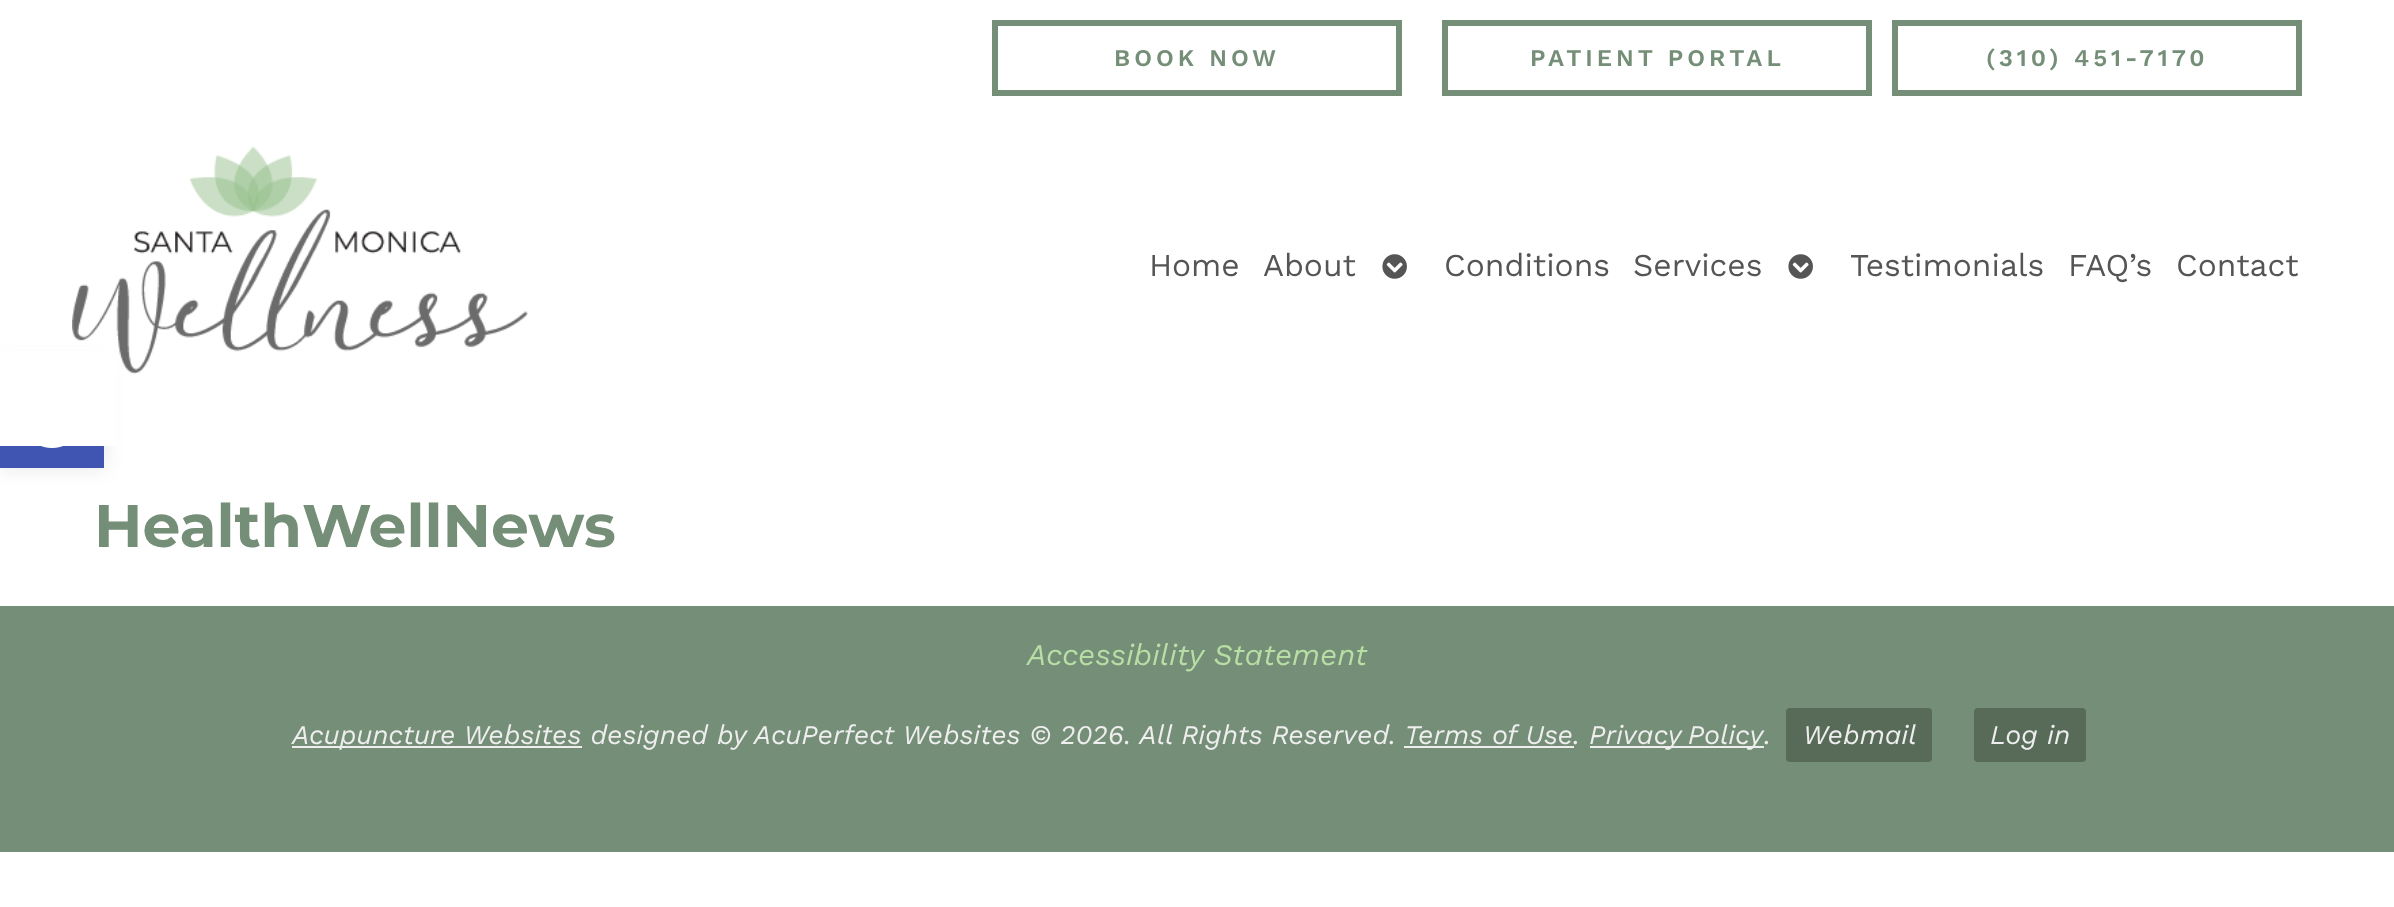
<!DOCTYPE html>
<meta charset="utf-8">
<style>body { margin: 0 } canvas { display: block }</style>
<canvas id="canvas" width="2394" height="907"></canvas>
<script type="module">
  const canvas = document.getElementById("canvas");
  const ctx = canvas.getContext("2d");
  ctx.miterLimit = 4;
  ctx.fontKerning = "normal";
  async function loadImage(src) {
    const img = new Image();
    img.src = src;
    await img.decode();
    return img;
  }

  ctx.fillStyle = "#ffffff";
  ctx.fillRect(0, 0, 2394, 907);
  ctx.fillStyle = "rgba(0, 0, 0, 0.1)";
  ctx.filter = "blur(10px)";
  ctx.beginPath();
  ctx.rect(0, 364, 104, 104);
  ctx.fill();
  ctx.filter = "none";
  ctx.fillStyle = "#4054b2";
  ctx.fillRect(0, 446, 104, 22);
  ctx.drawImage(await loadImage("img1.png"), 41, 446, 22, 2);
  ctx.strokeStyle = "#758e77";
  ctx.lineWidth = 6;
  ctx.strokeRect(995, 23, 404, 70);
  ctx.letterSpacing = "4px";
  ctx.font = "600 24px Work Sans";
  ctx.fillStyle = "#758e77";
  ctx.fillText("BOOK NOW", 1114, 66);
  ctx.strokeRect(1445, 23, 424, 70);
  ctx.fillText("PATIENT PORTAL", 1530, 66);
  ctx.strokeRect(1895, 23, 404, 70);
  ctx.fillText("(310) 451-7170", 1986, 66);
  ctx.fillStyle = "#ffffff";
  ctx.fillRect(0, 351, 117, 95);
  ctx.drawImage(await loadImage("img2.png"), 72, 146, 456, 228);
  ctx.letterSpacing = "0px";
  ctx.font = "31.75px Work Sans";
  ctx.fillStyle = "#555555";
  ctx.fillText("Home", 1149, 276);
  ctx.fillText("About", 1263, 276);
  ctx.drawImage(await loadImage("img3.png"), 1382, 254, 25, 25);
  ctx.fillText("Conditions", 1444, 276);
  ctx.fillText("Services", 1633, 276);
  ctx.drawImage(await loadImage("img3.png"), 1788, 254, 25, 25);
  ctx.fillText("Testimonials", 1850, 276);
  ctx.fillText("FAQ’s", 2068, 276);
  ctx.fillText("Contact", 2176, 276);
  ctx.font = "bold 60px Montserrat";
  ctx.fillStyle = "#758e77";
  ctx.fillText("HealthWellNews", 94, 547);
  ctx.fillRect(0, 606, 2394, 246);
  ctx.font = "italic 30px Work Sans";
  ctx.fillStyle = "#b7dea4";
  ctx.fillText("Accessibility Statement", 1027, 665);
  ctx.fillStyle = "#eeeeee";
  ctx.fillRect(292, 746, 290, 2);
  ctx.font = "italic 27px Work Sans";
  ctx.fillText("Acupuncture Websites designed by AcuPerfect Websites © 2026. All Rights Reserved. Terms of Use.", 292, 744);
  ctx.fillRect(1590, 746, 174, 2);
  ctx.wordSpacing = "-2px";
  ctx.fillText("Privacy Policy", 1589, 744);
  ctx.fillStyle = "#586b59";
  ctx.beginPath();
  ctx.roundRect(1786, 708, 146, 54, 4);
  ctx.fill();
  ctx.wordSpacing = "0px";
  ctx.fillStyle = "#eeeeee";
  ctx.fillText("Webmail", 1803, 744);
  ctx.fillStyle = "#586b59";
  ctx.beginPath();
  ctx.roundRect(1974, 708, 112, 54, 4);
  ctx.fill();
  ctx.fillStyle = "#eeeeee";
  ctx.fillText("Log in", 1990, 744);
  ctx.fillText(".", 1764, 744);
  ctx.fillRect(1404, 746, 170, 2);
</script>
